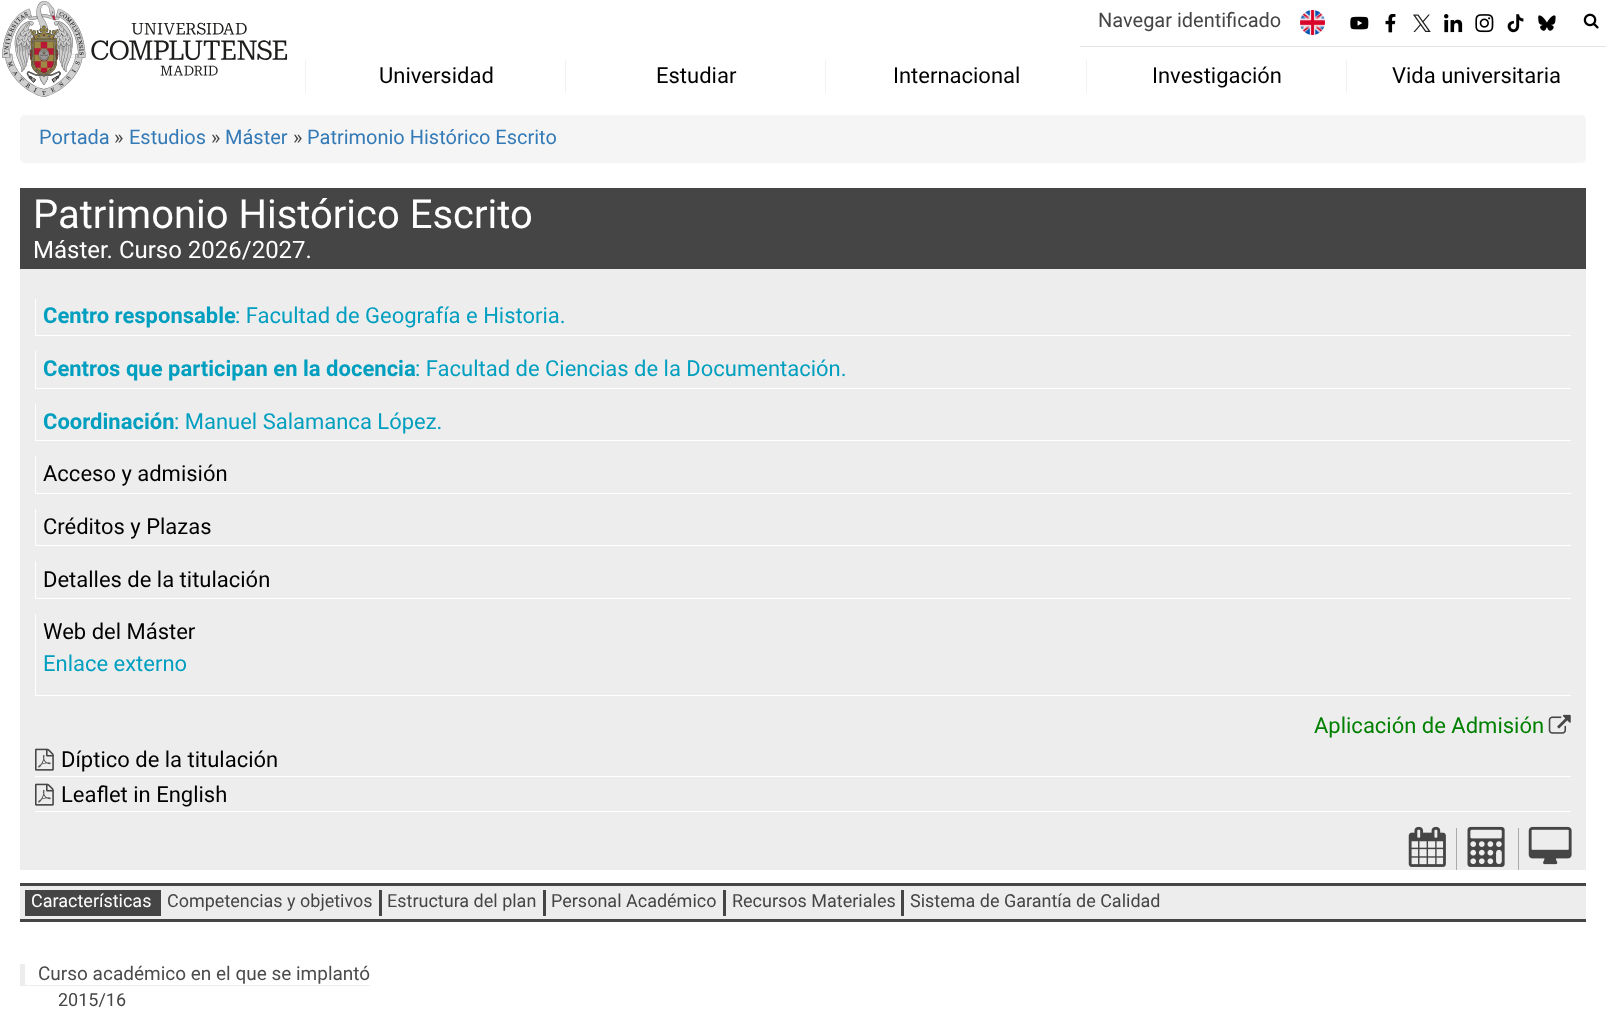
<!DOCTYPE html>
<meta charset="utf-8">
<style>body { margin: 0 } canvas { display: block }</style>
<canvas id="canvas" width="1606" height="1032"></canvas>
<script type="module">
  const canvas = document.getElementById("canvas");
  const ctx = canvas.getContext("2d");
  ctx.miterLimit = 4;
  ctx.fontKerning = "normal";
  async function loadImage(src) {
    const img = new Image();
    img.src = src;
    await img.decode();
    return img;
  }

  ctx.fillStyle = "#ffffff";
  ctx.fillRect(0, 0, 1606, 1032);
  ctx.drawImage(await loadImage("img1.png"), 2, 1, 286, 96);
  ctx.fillStyle = "#e5e5e5";
  ctx.fillRect(1080, 46, 526, 1);
  ctx.font = "20px Roboto";
  ctx.fillStyle = "#454545";
  ctx.fillText("Navegar identificado", 1098, 27);
  ctx.drawImage(await loadImage("img2.png"), 1300, 10, 25, 25);
  ctx.drawImage(await loadImage("img3.png"), 1350, 16, 19, 14);
  ctx.drawImage(await loadImage("img4.png"), 1385, 14, 11, 19);
  ctx.drawImage(await loadImage("img5.png"), 1413, 14, 18, 18);
  ctx.drawImage(await loadImage("img6.png"), 1444, 14, 19, 19);
  ctx.drawImage(await loadImage("img7.png"), 1475, 14, 19, 19);
  ctx.drawImage(await loadImage("img8.png"), 1507, 14, 17, 19);
  ctx.drawImage(await loadImage("img9.png"), 1538, 15, 18, 16);
  ctx.drawImage(await loadImage("img10.png"), 1583, 13, 16, 16);
  ctx.fillStyle = "#f2f2f2";
  ctx.fillRect(305, 60, 1, 33);
  ctx.font = "22px Roboto";
  ctx.fillStyle = "#000000";
  ctx.fillText("Universidad", 379, 83);
  ctx.fillStyle = "#f2f2f2";
  ctx.fillRect(565, 60, 1, 33);
  ctx.fillStyle = "#000000";
  ctx.fillText("Estudiar", 656, 83);
  ctx.fillStyle = "#f2f2f2";
  ctx.fillRect(825, 60, 1, 33);
  ctx.fillStyle = "#000000";
  ctx.fillText("Internacional", 893, 83);
  ctx.fillStyle = "#f2f2f2";
  ctx.fillRect(1086, 60, 1, 33);
  ctx.fillStyle = "#000000";
  ctx.fillText("Investigación", 1152, 83);
  ctx.fillStyle = "#f2f2f2";
  ctx.fillRect(1346, 60, 1, 33);
  ctx.fillStyle = "#000000";
  ctx.fillText("Vida universitaria", 1392, 83);
  ctx.fillStyle = "#f5f5f5";
  ctx.beginPath();
  ctx.roundRect(20, 115, 1566, 48, 5);
  ctx.fill();
  ctx.font = "20px Roboto";
  ctx.fillStyle = "#337ab7";
  ctx.fillText("Portada", 39, 144);
  ctx.fillStyle = "#454545";
  ctx.fillText("»", 114, 144);
  ctx.fillStyle = "#337ab7";
  ctx.fillText("Estudios", 129, 144);
  ctx.fillStyle = "#454545";
  ctx.fillText("»", 211, 144);
  ctx.fillStyle = "#337ab7";
  ctx.fillText("Máster", 225, 144);
  ctx.fillStyle = "#454545";
  ctx.fillText("»", 293, 144);
  ctx.fillStyle = "#337ab7";
  ctx.fillText("Patrimonio Histórico Escrito", 307, 144);
  ctx.fillStyle = "#454545";
  ctx.fillRect(20, 188, 1566, 81);
  ctx.font = "40px Roboto";
  ctx.fillStyle = "#ffffff";
  ctx.fillText("Patrimonio Histórico Escrito", 33, 228);
  ctx.font = "24px Roboto";
  ctx.fillText("Máster. Curso 2026/2027.", 33, 258);
  ctx.fillStyle = "#ededed";
  ctx.fillRect(20, 269, 1566, 601);
  ctx.fillStyle = "#ffffff";
  ctx.fillRect(35, 335, 1536, 1);
  ctx.fillRect(35, 299, 1, 37);
  ctx.font = "bold 22px Roboto";
  ctx.fillStyle = "#009fbf";
  ctx.fillText("Centro responsable", 43, 323);
  ctx.font = "22px Roboto";
  ctx.fillText(": Facultad de Geografía e Historia.", 235, 323);
  ctx.fillStyle = "#ffffff";
  ctx.fillRect(35, 388, 1536, 1);
  ctx.fillRect(35, 351, 1, 38);
  ctx.font = "bold 22px Roboto";
  ctx.fillStyle = "#009fbf";
  ctx.fillText("Centros que participan en la docencia", 43, 376);
  ctx.font = "22px Roboto";
  ctx.fillText(": Facultad de Ciencias de la Documentación.", 415, 376);
  ctx.fillStyle = "#ffffff";
  ctx.fillRect(35, 440, 1536, 1);
  ctx.fillRect(35, 404, 1, 37);
  ctx.font = "bold 22px Roboto";
  ctx.fillStyle = "#009fbf";
  ctx.fillText("Coordinación", 43, 429);
  ctx.font = "22px Roboto";
  ctx.fillText(": Manuel Salamanca López.", 174, 429);
  ctx.fillStyle = "#ffffff";
  ctx.fillRect(35, 493, 1536, 1);
  ctx.fillRect(35, 456, 1, 38);
  ctx.fillStyle = "#000000";
  ctx.fillText("Acceso y admisión", 43, 481);
  ctx.fillStyle = "#ffffff";
  ctx.fillRect(35, 545, 1536, 1);
  ctx.fillRect(35, 509, 1, 37);
  ctx.fillStyle = "#000000";
  ctx.fillText("Créditos y Plazas", 43, 534);
  ctx.fillStyle = "#ffffff";
  ctx.fillRect(35, 598, 1536, 1);
  ctx.fillRect(35, 561, 1, 38);
  ctx.fillStyle = "#000000";
  ctx.fillText("Detalles de la titulación", 43, 587);
  ctx.fillStyle = "#ffffff";
  ctx.fillRect(35, 695, 1536, 1);
  ctx.fillRect(35, 614, 1, 82);
  ctx.fillStyle = "#000000";
  ctx.fillText("Web del Máster", 43, 639);
  ctx.fillStyle = "#009fbf";
  ctx.fillText("Enlace externo", 43, 671);
  ctx.fillStyle = "#008000";
  ctx.fillText("Aplicación de Admisión", 1314, 733);
  ctx.drawImage(await loadImage("img11.png"), 1548, 714, 23, 20);
  ctx.fillStyle = "#ffffff";
  ctx.fillRect(35, 776, 1536, 1);
  ctx.drawImage(await loadImage("img12.png"), 35, 748, 19, 23);
  ctx.fillStyle = "#000000";
  ctx.fillText("Díptico de la titulación", 61, 767);
  ctx.fillStyle = "#ffffff";
  ctx.fillRect(35, 811, 1536, 1);
  ctx.drawImage(await loadImage("img12.png"), 35, 783, 19, 23);
  ctx.fillStyle = "#000000";
  ctx.fillText("Leaflet in English", 61, 802);
  ctx.drawImage(await loadImage("img13.png"), 1408, 826, 38, 41);
  ctx.fillStyle = "#aaaaaa";
  ctx.fillRect(1456, 828, 1, 42);
  ctx.drawImage(await loadImage("img14.png"), 1467, 826, 38, 41);
  ctx.fillRect(1518, 828, 1, 42);
  ctx.drawImage(await loadImage("img15.png"), 1528, 826, 44, 39);
  ctx.fillStyle = "#ededed";
  ctx.fillRect(20, 886, 1566, 33);
  ctx.fillStyle = "#454545";
  ctx.fillRect(20, 883, 1566, 3);
  ctx.fillRect(20, 919, 1566, 3);
  ctx.fillRect(25, 890, 136, 26);
  ctx.font = "18px Roboto";
  ctx.fillStyle = "#ffffff";
  ctx.fillText("Características", 31, 907);
  ctx.fillStyle = "#454545";
  ctx.fillRect(379, 890, 3, 26);
  ctx.fillText("Competencias y objetivos", 167, 907);
  ctx.fillRect(543, 890, 3, 26);
  ctx.fillText("Estructura del plan", 387, 907);
  ctx.fillRect(723, 890, 3, 26);
  ctx.fillText("Personal Académico", 551, 907);
  ctx.fillRect(901, 890, 3, 26);
  ctx.fillText("Recursos Materiales", 732, 907);
  ctx.fillText("Sistema de Garantía de Calidad", 910, 907);
  ctx.fillStyle = "#ededed";
  ctx.fillRect(20, 985, 350, 1);
  ctx.fillRect(20, 964, 5, 22);
  ctx.font = "19px Roboto";
  ctx.fillStyle = "#4c4c4c";
  ctx.fillText("Curso académico en el que se implantó", 38, 980);
  ctx.font = "18px Roboto";
  ctx.fillStyle = "#454545";
  ctx.fillText("2015/16", 58, 1006);
</script>
